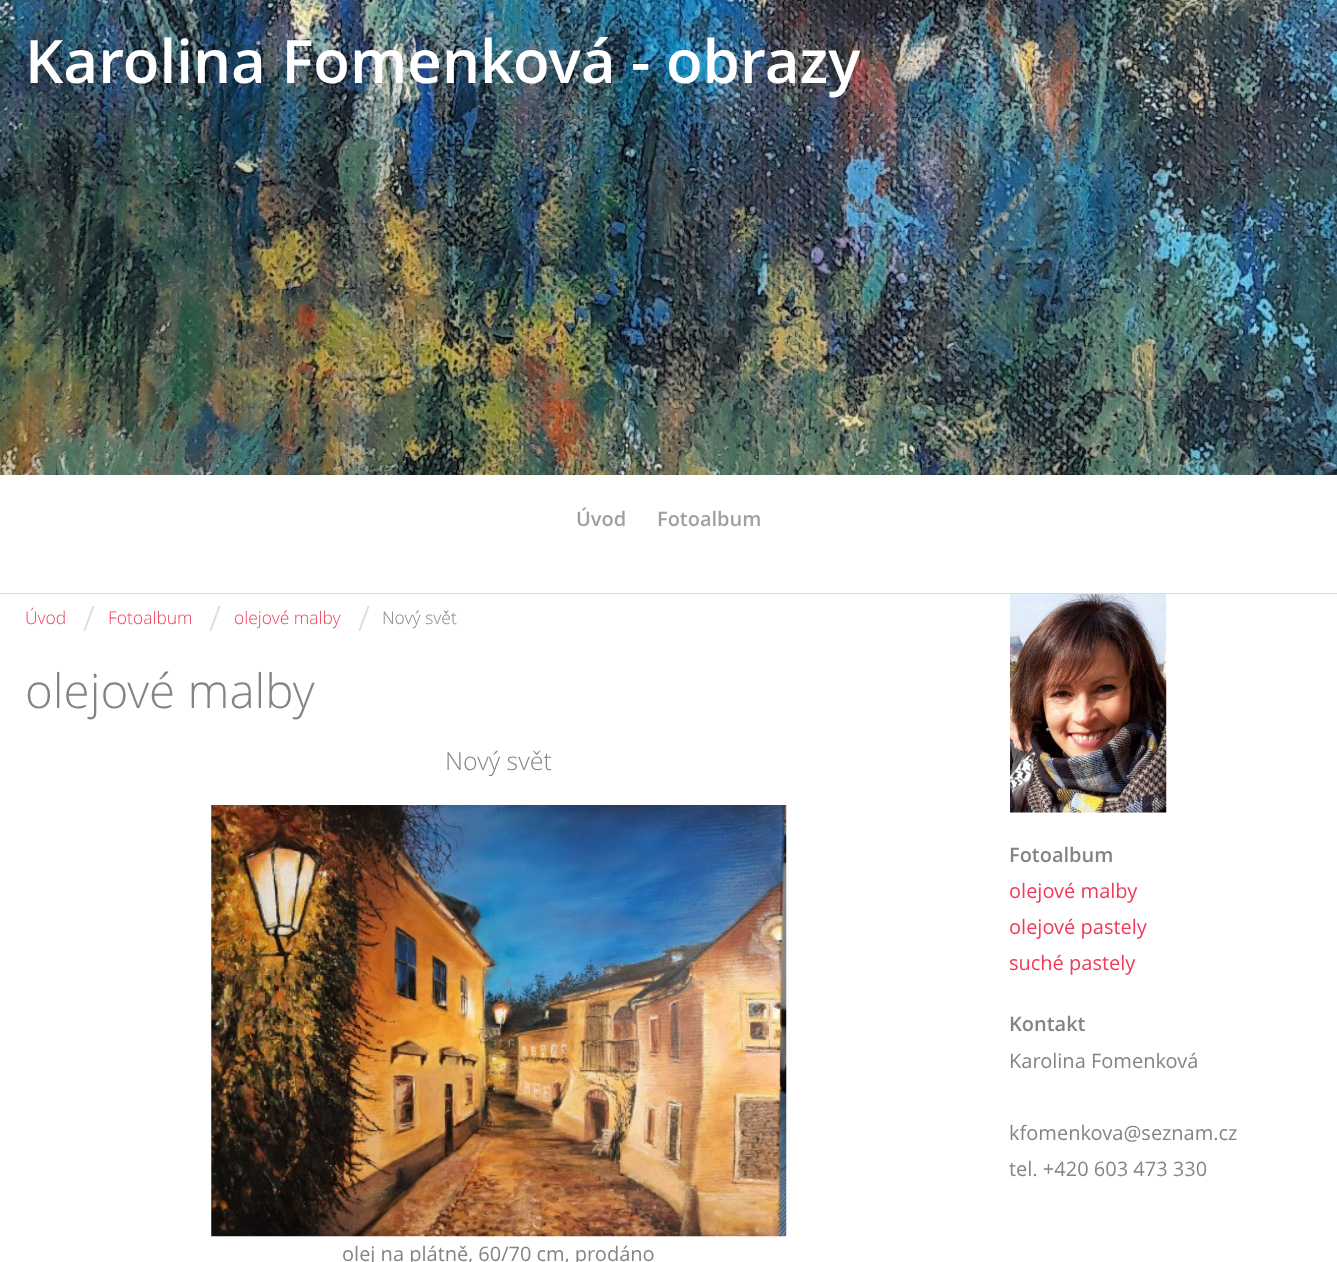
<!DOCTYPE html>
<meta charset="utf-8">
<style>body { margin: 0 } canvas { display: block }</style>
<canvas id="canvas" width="1337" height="1262"></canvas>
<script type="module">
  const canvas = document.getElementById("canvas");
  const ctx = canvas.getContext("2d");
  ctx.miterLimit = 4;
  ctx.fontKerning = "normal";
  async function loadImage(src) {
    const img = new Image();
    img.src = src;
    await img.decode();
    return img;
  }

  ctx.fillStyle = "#ffffff";
  ctx.fillRect(0, 0, 1337, 1262);
  ctx.drawImage(await loadImage("img1.png"), 0, 0, 1337, 475);
  ctx.font = "600 60px Open Sans";
  ctx.fillText("Karolina Fomenková - obrazy", 25, 83);
  ctx.font = "600 20px Open Sans";
  ctx.fillStyle = "#a0a0a0";
  ctx.fillText("Úvod", 576, 526);
  ctx.fillText("Fotoalbum", 657, 526);
  ctx.fillStyle = "#dbdbdb";
  ctx.fillRect(0, 593, 1337, 1);
  ctx.font = "300 17.5px Open Sans";
  ctx.fillStyle = "#f03a59";
  ctx.fillText("Úvod", 25, 624);
  ctx.font = "300 35px Open Sans";
  ctx.fillStyle = "#dadada";
  ctx.fillText("/", 83, 631);
  ctx.font = "300 17.5px Open Sans";
  ctx.fillStyle = "#f03a59";
  ctx.fillText("Fotoalbum", 108, 624);
  ctx.font = "300 35px Open Sans";
  ctx.fillStyle = "#dadada";
  ctx.fillText("/", 209, 631);
  ctx.font = "300 17.5px Open Sans";
  ctx.fillStyle = "#f03a59";
  ctx.fillText("olejové malby", 234, 624);
  ctx.font = "300 35px Open Sans";
  ctx.fillStyle = "#dadada";
  ctx.fillText("/", 358, 631);
  ctx.font = "300 17.5px Open Sans";
  ctx.fillStyle = "#848484";
  ctx.fillText("Nový svět", 382, 624);
  ctx.font = "300 47.5px Open Sans";
  ctx.fillText("olejové malby", 25, 708);
  ctx.font = "300 25px Open Sans";
  ctx.fillText("Nový svět", 445, 770);
  ctx.drawImage(await loadImage("img2.png"), 211, 805, 576, 432);
  ctx.font = "20px Open Sans";
  ctx.fillText("olej na plátně, 60/70 cm, prodáno", 342, 1261);
  ctx.drawImage(await loadImage("img3.png"), 1010, 594, 157, 219);
  ctx.font = "600 20px Open Sans";
  ctx.fillText("Fotoalbum", 1009, 862);
  ctx.font = "20px Open Sans";
  ctx.fillStyle = "#f03a59";
  ctx.fillText("olejové malby", 1009, 898);
  ctx.fillText("olejové pastely", 1009, 934);
  ctx.fillText("suché pastely", 1009, 970);
  ctx.font = "600 20px Open Sans";
  ctx.fillStyle = "#848484";
  ctx.fillText("Kontakt", 1009, 1031);
  ctx.font = "20px Open Sans";
  ctx.fillText("Karolina Fomenková", 1009, 1068);
  ctx.fillText("kfomenkova@seznam.cz", 1009, 1140);
  ctx.fillText("tel. +420 603 473 330", 1009, 1176);
</script>
